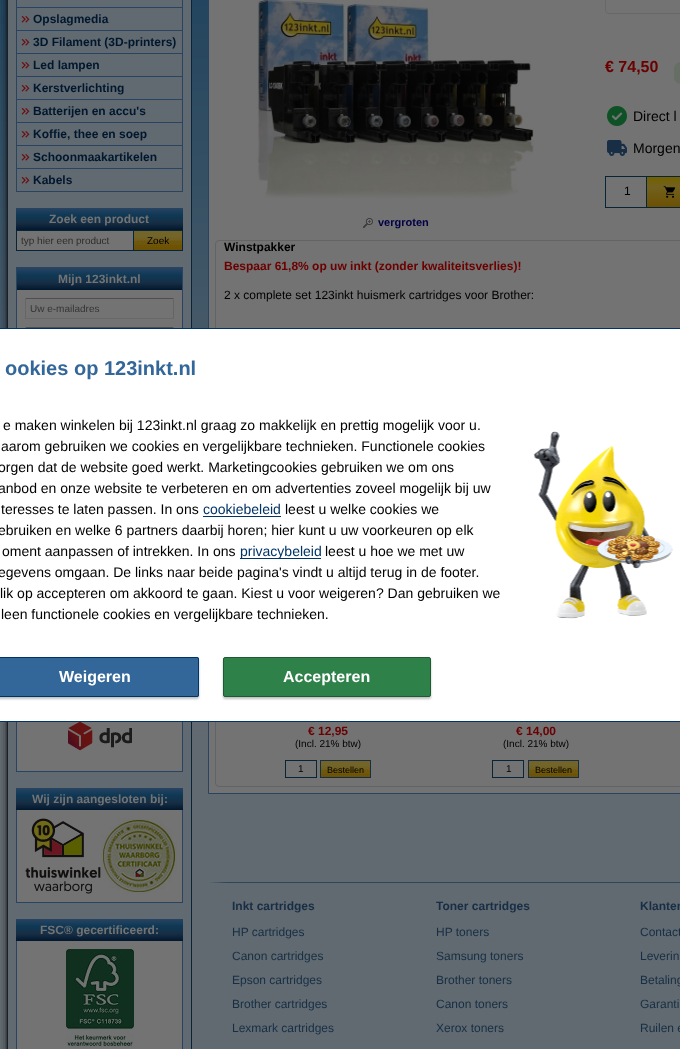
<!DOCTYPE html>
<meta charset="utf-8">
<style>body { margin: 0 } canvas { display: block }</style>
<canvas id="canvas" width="680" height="1049"></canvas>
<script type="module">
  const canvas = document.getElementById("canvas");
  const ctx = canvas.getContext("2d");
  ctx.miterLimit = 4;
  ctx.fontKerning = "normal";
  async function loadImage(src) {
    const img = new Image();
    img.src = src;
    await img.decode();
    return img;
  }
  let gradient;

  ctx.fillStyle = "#616a70";
  ctx.fillRect(0, 0, 680, 1049);
  ctx.drawImage(await loadImage("img1.png"), 0, 0, 208, 328);
  ctx.drawImage(await loadImage("img2.png"), 1, 0, 191, 1049);
  ctx.fillStyle = "#284462";
  ctx.fillRect(182, 0, 1, 192);
  ctx.fillRect(16, 7, 167, 1);
  ctx.fillRect(16, 0, 1, 8);
  ctx.fillRect(16, 30, 167, 1);
  ctx.fillRect(16, 8, 1, 23);
  ctx.drawImage(await loadImage("img3.png"), 21, 16, 9, 7);
  ctx.font = "bold 12px Liberation Sans";
  ctx.fillStyle = "#00172e";
  ctx.fillText("Opslagmedia", 33, 23);
  ctx.fillStyle = "#284462";
  ctx.fillRect(16, 53, 167, 1);
  ctx.fillRect(16, 31, 1, 23);
  ctx.drawImage(await loadImage("img3.png"), 21, 39, 9, 7);
  ctx.fillStyle = "#00172e";
  ctx.fillText("3D Filament (3D-printers)", 33, 46);
  ctx.fillStyle = "#284462";
  ctx.fillRect(16, 76, 167, 1);
  ctx.fillRect(16, 54, 1, 23);
  ctx.drawImage(await loadImage("img3.png"), 21, 62, 9, 7);
  ctx.fillStyle = "#00172e";
  ctx.fillText("Led lampen", 33, 69);
  ctx.fillStyle = "#284462";
  ctx.fillRect(16, 99, 167, 1);
  ctx.fillRect(16, 77, 1, 23);
  ctx.drawImage(await loadImage("img3.png"), 21, 85, 9, 7);
  ctx.fillStyle = "#00172e";
  ctx.fillText("Kerstverlichting", 33, 92);
  ctx.fillStyle = "#284462";
  ctx.fillRect(16, 122, 167, 1);
  ctx.fillRect(16, 100, 1, 23);
  ctx.drawImage(await loadImage("img3.png"), 21, 108, 9, 7);
  ctx.fillStyle = "#00172e";
  ctx.fillText("Batterijen en accu's", 33, 115);
  ctx.fillStyle = "#284462";
  ctx.fillRect(16, 145, 167, 1);
  ctx.fillRect(16, 123, 1, 23);
  ctx.drawImage(await loadImage("img3.png"), 21, 131, 9, 7);
  ctx.fillStyle = "#00172e";
  ctx.fillText("Koffie, thee en soep", 33, 138);
  ctx.fillStyle = "#284462";
  ctx.fillRect(16, 168, 167, 1);
  ctx.fillRect(16, 146, 1, 23);
  ctx.drawImage(await loadImage("img3.png"), 21, 154, 9, 7);
  ctx.fillStyle = "#00172e";
  ctx.fillText("Schoonmaakartikelen", 33, 161);
  ctx.fillStyle = "#284462";
  ctx.fillRect(16, 191, 167, 1);
  ctx.fillRect(16, 169, 1, 23);
  ctx.drawImage(await loadImage("img3.png"), 21, 177, 9, 7);
  ctx.fillStyle = "#00172e";
  ctx.fillText("Kabels", 33, 184);
  gradient = ctx.createLinearGradient(100, 208, 100, 230);
  gradient.addColorStop(0, "#284462");
  gradient.addColorStop(0.33, "#0e3855");
  gradient.addColorStop(0.67, "#172e45");
  gradient.addColorStop(1, "#00172e");
  ctx.fillStyle = gradient;
  ctx.fillRect(16, 208, 167, 22);
  ctx.fillStyle = "#737373";
  ctx.fillText("Zoek een product", 49, 223);
  ctx.fillRect(17, 231, 116, 19);
  ctx.fillStyle = "#082438";
  ctx.fillRect(16, 230, 117, 1);
  ctx.fillRect(16, 250, 117, 1);
  ctx.fillRect(16, 230, 1, 21);
  ctx.font = "10px Liberation Sans";
  ctx.fillStyle = "#2e2e2e";
  ctx.fillText("typ hier een product", 21, 244);
  ctx.fillStyle = "#736429";
  ctx.fillRect(134, 231, 48, 6);
  ctx.drawImage(await loadImage("img4.png"), 134, 237, 48, 13);
  ctx.strokeStyle = "#082438";
  ctx.strokeRect(133.5, 230.5, 49, 20);
  ctx.fillStyle = "#000000";
  ctx.fillText("Zoek", 147, 244);
  ctx.fillStyle = "#737373";
  ctx.fillRect(17, 290, 165, 38);
  ctx.strokeStyle = "#284462";
  ctx.strokeRect(16.5, 267.5, 166, 137);
  gradient = ctx.createLinearGradient(100, 268, 100, 290);
  gradient.addColorStop(0, "#284462");
  gradient.addColorStop(0.33, "#0e3855");
  gradient.addColorStop(0.67, "#172e45");
  gradient.addColorStop(1, "#00172e");
  ctx.fillStyle = gradient;
  ctx.fillRect(17, 268, 165, 22);
  ctx.font = "bold 12px Liberation Sans";
  ctx.fillStyle = "#737373";
  ctx.fillText("Mijn 123inkt.nl", 58, 283);
  ctx.fillStyle = "#4d4e51";
  ctx.fillRect(25, 298, 149, 1);
  ctx.fillStyle = "#636467";
  ctx.fillRect(173, 298, 1, 21);
  ctx.fillStyle = "#66696c";
  ctx.fillRect(25, 318, 149, 1);
  ctx.fillStyle = "#666669";
  ctx.fillRect(25, 298, 1, 21);
  ctx.font = "10px Liberation Sans";
  ctx.fillStyle = "#353535";
  ctx.fillText("Uw e-mailadres", 30, 312);
  ctx.fillStyle = "#4d4e51";
  ctx.fillRect(25, 327, 149, 1);
  ctx.fillStyle = "#636467";
  ctx.fillRect(173, 327, 1, 1);
  ctx.fillStyle = "#666669";
  ctx.fillRect(25, 327, 1, 1);
  ctx.fillStyle = "#737373";
  ctx.fillRect(17, 722, 165, 49);
  ctx.fillStyle = "#284462";
  ctx.fillRect(182, 722, 1, 50);
  ctx.fillRect(16, 771, 167, 1);
  ctx.fillRect(16, 722, 1, 50);
  ctx.drawImage(await loadImage("img5.png"), 68, 722, 64, 29);
  gradient = ctx.createLinearGradient(100, 788, 100, 810);
  gradient.addColorStop(0, "#284462");
  gradient.addColorStop(0.33, "#0e3855");
  gradient.addColorStop(0.67, "#172e45");
  gradient.addColorStop(1, "#00172e");
  ctx.fillStyle = gradient;
  ctx.fillRect(16, 788, 167, 22);
  ctx.font = "bold 12px Liberation Sans";
  ctx.fillStyle = "#737373";
  ctx.fillText("Wij zijn aangesloten bij:", 32, 803);
  ctx.fillRect(17, 810, 165, 92);
  ctx.fillStyle = "#284462";
  ctx.fillRect(182, 810, 1, 93);
  ctx.fillRect(16, 902, 167, 1);
  ctx.fillRect(16, 810, 1, 93);
  ctx.drawImage(await loadImage("img6.png"), 25, 818, 76, 76);
  ctx.drawImage(await loadImage("img7.png"), 101, 818, 76, 76);
  gradient = ctx.createLinearGradient(100, 919, 100, 941);
  gradient.addColorStop(0, "#284462");
  gradient.addColorStop(0.33, "#0e3855");
  gradient.addColorStop(0.67, "#172e45");
  gradient.addColorStop(1, "#00172e");
  ctx.fillStyle = gradient;
  ctx.fillRect(16, 919, 167, 22);
  ctx.fillStyle = "#737373";
  ctx.fillText("FSC® gecertificeerd:", 40, 934);
  ctx.fillRect(17, 941, 165, 108);
  ctx.fillStyle = "#284462";
  ctx.fillRect(182, 941, 1, 108);
  ctx.fillRect(16, 941, 1, 108);
  ctx.drawImage(await loadImage("img8.png"), 66, 949, 68, 100);
  ctx.fillStyle = "#737373";
  ctx.beginPath();
  ctx.rect(208.5, -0.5, 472, 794);
  ctx.fill();
  ctx.stroke();
  ctx.beginPath();
  ctx.roundRect(605.5, -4.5, 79, 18, 3.5);
  ctx.strokeStyle = "#66696c";
  ctx.stroke();
  ctx.font = "bold 16px Liberation Sans";
  ctx.fillStyle = "#6b0000";
  ctx.fillText("€ 74,50", 605, 72);
  ctx.fillStyle = "#666f64";
  ctx.beginPath();
  ctx.roundRect(674, 62, 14, 22, 8);
  ctx.fill();
  ctx.drawImage(await loadImage("img9.png"), 607, 106, 20, 20);
  ctx.font = "14px Liberation Sans";
  ctx.fillStyle = "#000000";
  ctx.fillText("Direct l", 633, 121);
  ctx.drawImage(await loadImage("img10.png"), 607, 140, 20, 16);
  ctx.fillText("Morgen", 633, 153);
  ctx.strokeStyle = "#082438";
  ctx.strokeRect(605.5, 176.5, 44, 31);
  ctx.font = "12px Liberation Sans";
  ctx.fillText("1", 624, 195);
  gradient = ctx.createLinearGradient(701, 177, 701, 207);
  gradient.addColorStop(0, "#736100");
  gradient.addColorStop(0.32, "#72611f");
  gradient.addColorStop(1, "#6c5002");
  ctx.fillStyle = gradient;
  ctx.fillRect(647, 177, 33, 30);
  ctx.strokeRect(646.5, 176.5, 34, 31);
  ctx.drawImage(await loadImage("img11.png"), 663, 186, 13, 12);
  ctx.drawImage(await loadImage("img12.png"), 257, 0, 277, 198);
  ctx.drawImage(await loadImage("img13.png"), 363, 218, 10, 10);
  ctx.font = "bold 11px Liberation Sans";
  ctx.fillStyle = "#000045";
  ctx.fillText("vergroten", 378, 226);
  ctx.beginPath();
  ctx.roundRect(215.5, 240.5, 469, 191, 3.5);
  ctx.strokeStyle = "#606467";
  ctx.stroke();
  ctx.font = "bold 12px Liberation Sans";
  ctx.fillStyle = "#000000";
  ctx.fillText("Winstpakker", 224, 251);
  ctx.fillStyle = "#6b0000";
  ctx.fillText("Bespaar 61,8% op uw inkt (zonder kwaliteitsverlies)!", 224, 270);
  ctx.font = "12px Liberation Sans";
  ctx.fillStyle = "#000000";
  ctx.fillText("2 x complete set 123inkt huismerk cartridges voor Brother:", 224, 299);
  ctx.beginPath();
  ctx.roundRect(215.5, 544.5, 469, 242, 3.5);
  ctx.stroke();
  ctx.font = "bold 12px Liberation Sans";
  ctx.fillStyle = "#6b0000";
  ctx.fillText("€ 12,95", 308, 735);
  ctx.font = "10px Liberation Sans";
  ctx.fillStyle = "#000000";
  ctx.fillText("(Incl. 21% btw)", 295, 747);
  ctx.strokeStyle = "#082438";
  ctx.strokeRect(285.5, 760.5, 31, 17);
  ctx.fillText("1", 298, 772);
  ctx.drawImage(await loadImage("img14.png"), 321, 761, 49, 16);
  ctx.strokeStyle = "#172e45";
  ctx.strokeRect(320.5, 760.5, 50, 17);
  ctx.font = "9px Liberation Sans";
  ctx.fillText("Bestellen", 327, 773);
  ctx.font = "bold 12px Liberation Sans";
  ctx.fillStyle = "#6b0000";
  ctx.fillText("€ 14,00", 516, 735);
  ctx.font = "10px Liberation Sans";
  ctx.fillStyle = "#000000";
  ctx.fillText("(Incl. 21% btw)", 503, 747);
  ctx.strokeStyle = "#082438";
  ctx.strokeRect(492.5, 760.5, 31, 17);
  ctx.fillText("1", 506, 772);
  ctx.drawImage(await loadImage("img14.png"), 529, 761, 49, 16);
  ctx.strokeStyle = "#172e45";
  ctx.strokeRect(528.5, 760.5, 50, 17);
  ctx.font = "9px Liberation Sans";
  ctx.fillText("Bestellen", 535, 773);
  ctx.drawImage(await loadImage("img15.png"), 209, 882, 471, 1);
  ctx.font = "bold 12px Liberation Sans";
  ctx.fillStyle = "#172e45";
  ctx.fillText("Inkt cartridges", 232, 910);
  ctx.font = "12px Liberation Sans";
  ctx.fillText("HP cartridges", 232, 936);
  ctx.fillText("Canon cartridges", 232, 960);
  ctx.fillText("Epson cartridges", 232, 984);
  ctx.fillText("Brother cartridges", 232, 1008);
  ctx.fillText("Lexmark cartridges", 232, 1032);
  ctx.font = "bold 12px Liberation Sans";
  ctx.fillText("Toner cartridges", 436, 910);
  ctx.font = "12px Liberation Sans";
  ctx.fillText("HP toners", 436, 936);
  ctx.fillText("Samsung toners", 436, 960);
  ctx.fillText("Brother toners", 436, 984);
  ctx.fillText("Canon toners", 436, 1008);
  ctx.fillText("Xerox toners", 436, 1032);
  ctx.font = "bold 12px Liberation Sans";
  ctx.fillText("Klanten", 640, 910);
  ctx.font = "12px Liberation Sans";
  ctx.fillText("Contact", 640, 936);
  ctx.fillText("Leverin", 640, 960);
  ctx.fillText("Betaling", 640, 984);
  ctx.fillText("Garanti", 640, 1008);
  ctx.fillText("Ruilen e", 640, 1032);
  ctx.fillStyle = "#ffffff";
  ctx.beginPath();
  ctx.rect(-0.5, 328.5, 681, 393);
  ctx.fill();
  ctx.strokeStyle = "#003366";
  ctx.stroke();
  ctx.font = "bold 20px Liberation Sans";
  ctx.fillStyle = "#336699";
  ctx.fillText("ookies op 123inkt.nl", 5, 375);
  ctx.font = "14px Liberation Sans";
  ctx.fillStyle = "#000000";
  ctx.fillText("e maken winkelen bij 123inkt.nl graag zo makkelijk en prettig mogelijk voor u.", 3, 430);
  ctx.fillText("aarom gebruiken we cookies en vergelijkbare technieken. Functionele cookies", 1, 451);
  ctx.fillText("orgen dat de website goed werkt. Marketingcookies gebruiken we om ons", -2, 472);
  ctx.fillText("anbod en onze website te verbeteren en om advertenties zoveel mogelijk bij uw", -2, 493);
  ctx.fillText("teresses te laten passen. In ons", 1, 514);
  ctx.fillStyle = "#003366";
  ctx.fillText("cookiebeleid", 203, 514);
  ctx.fillRect(203, 516, 78, 1);
  ctx.fillStyle = "#000000";
  ctx.fillText("leest u welke cookies we", 285, 514);
  ctx.fillText("ebruiken en welke 6 partners daarbij horen; hier kunt u uw voorkeuren op elk", -2, 535);
  ctx.fillText("oment aanpassen of intrekken. In ons", 2, 556);
  ctx.fillStyle = "#003366";
  ctx.fillRect(240, 558, 81, 1);
  ctx.fillText("privacybeleid", 240, 556);
  ctx.fillStyle = "#000000";
  ctx.fillText("leest u hoe we met uw", 325, 556);
  ctx.fillText("egevens omgaan. De links naar beide pagina's vindt u altijd terug in de footer.", -2, 577);
  ctx.fillText("lik op accepteren om akkoord te gaan. Kiest u voor weigeren? Dan gebruiken we", 0, 598);
  ctx.fillText("leen functionele cookies en vergelijkbare technieken.", 1, 619);
  ctx.fillStyle = "rgba(0, 0, 0, 0.25)";
  ctx.filter = "blur(1px)";
  ctx.beginPath();
  ctx.roundRect(-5, 659, 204, 40, 2);
  ctx.fill();
  ctx.filter = "none";
  ctx.fillStyle = "#336699";
  ctx.beginPath();
  ctx.roundRect(0, 657, 199, 40, [0, 2, 2, 0]);
  ctx.fill();
  ctx.beginPath();
  ctx.roundRect(-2.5, 657.5, 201, 39, 1.5);
  ctx.stroke();
  ctx.font = "bold 16px Liberation Sans";
  ctx.fillStyle = "#ffffff";
  ctx.fillText("Weigeren", 59, 682);
  ctx.fillStyle = "rgba(0, 0, 0, 0.25)";
  ctx.filter = "blur(1px)";
  ctx.beginPath();
  ctx.roundRect(223, 659, 208, 40, 2);
  ctx.fill();
  ctx.filter = "none";
  ctx.fillStyle = "#2e8149";
  ctx.beginPath();
  ctx.roundRect(223.5, 657.5, 207, 39, 1.5);
  ctx.fill();
  ctx.strokeStyle = "#205a33";
  ctx.stroke();
  ctx.fillStyle = "#ffffff";
  ctx.fillText("Accepteren", 283, 682);
  ctx.drawImage(await loadImage("img16.png"), 533, 431, 140, 188);
</script>
